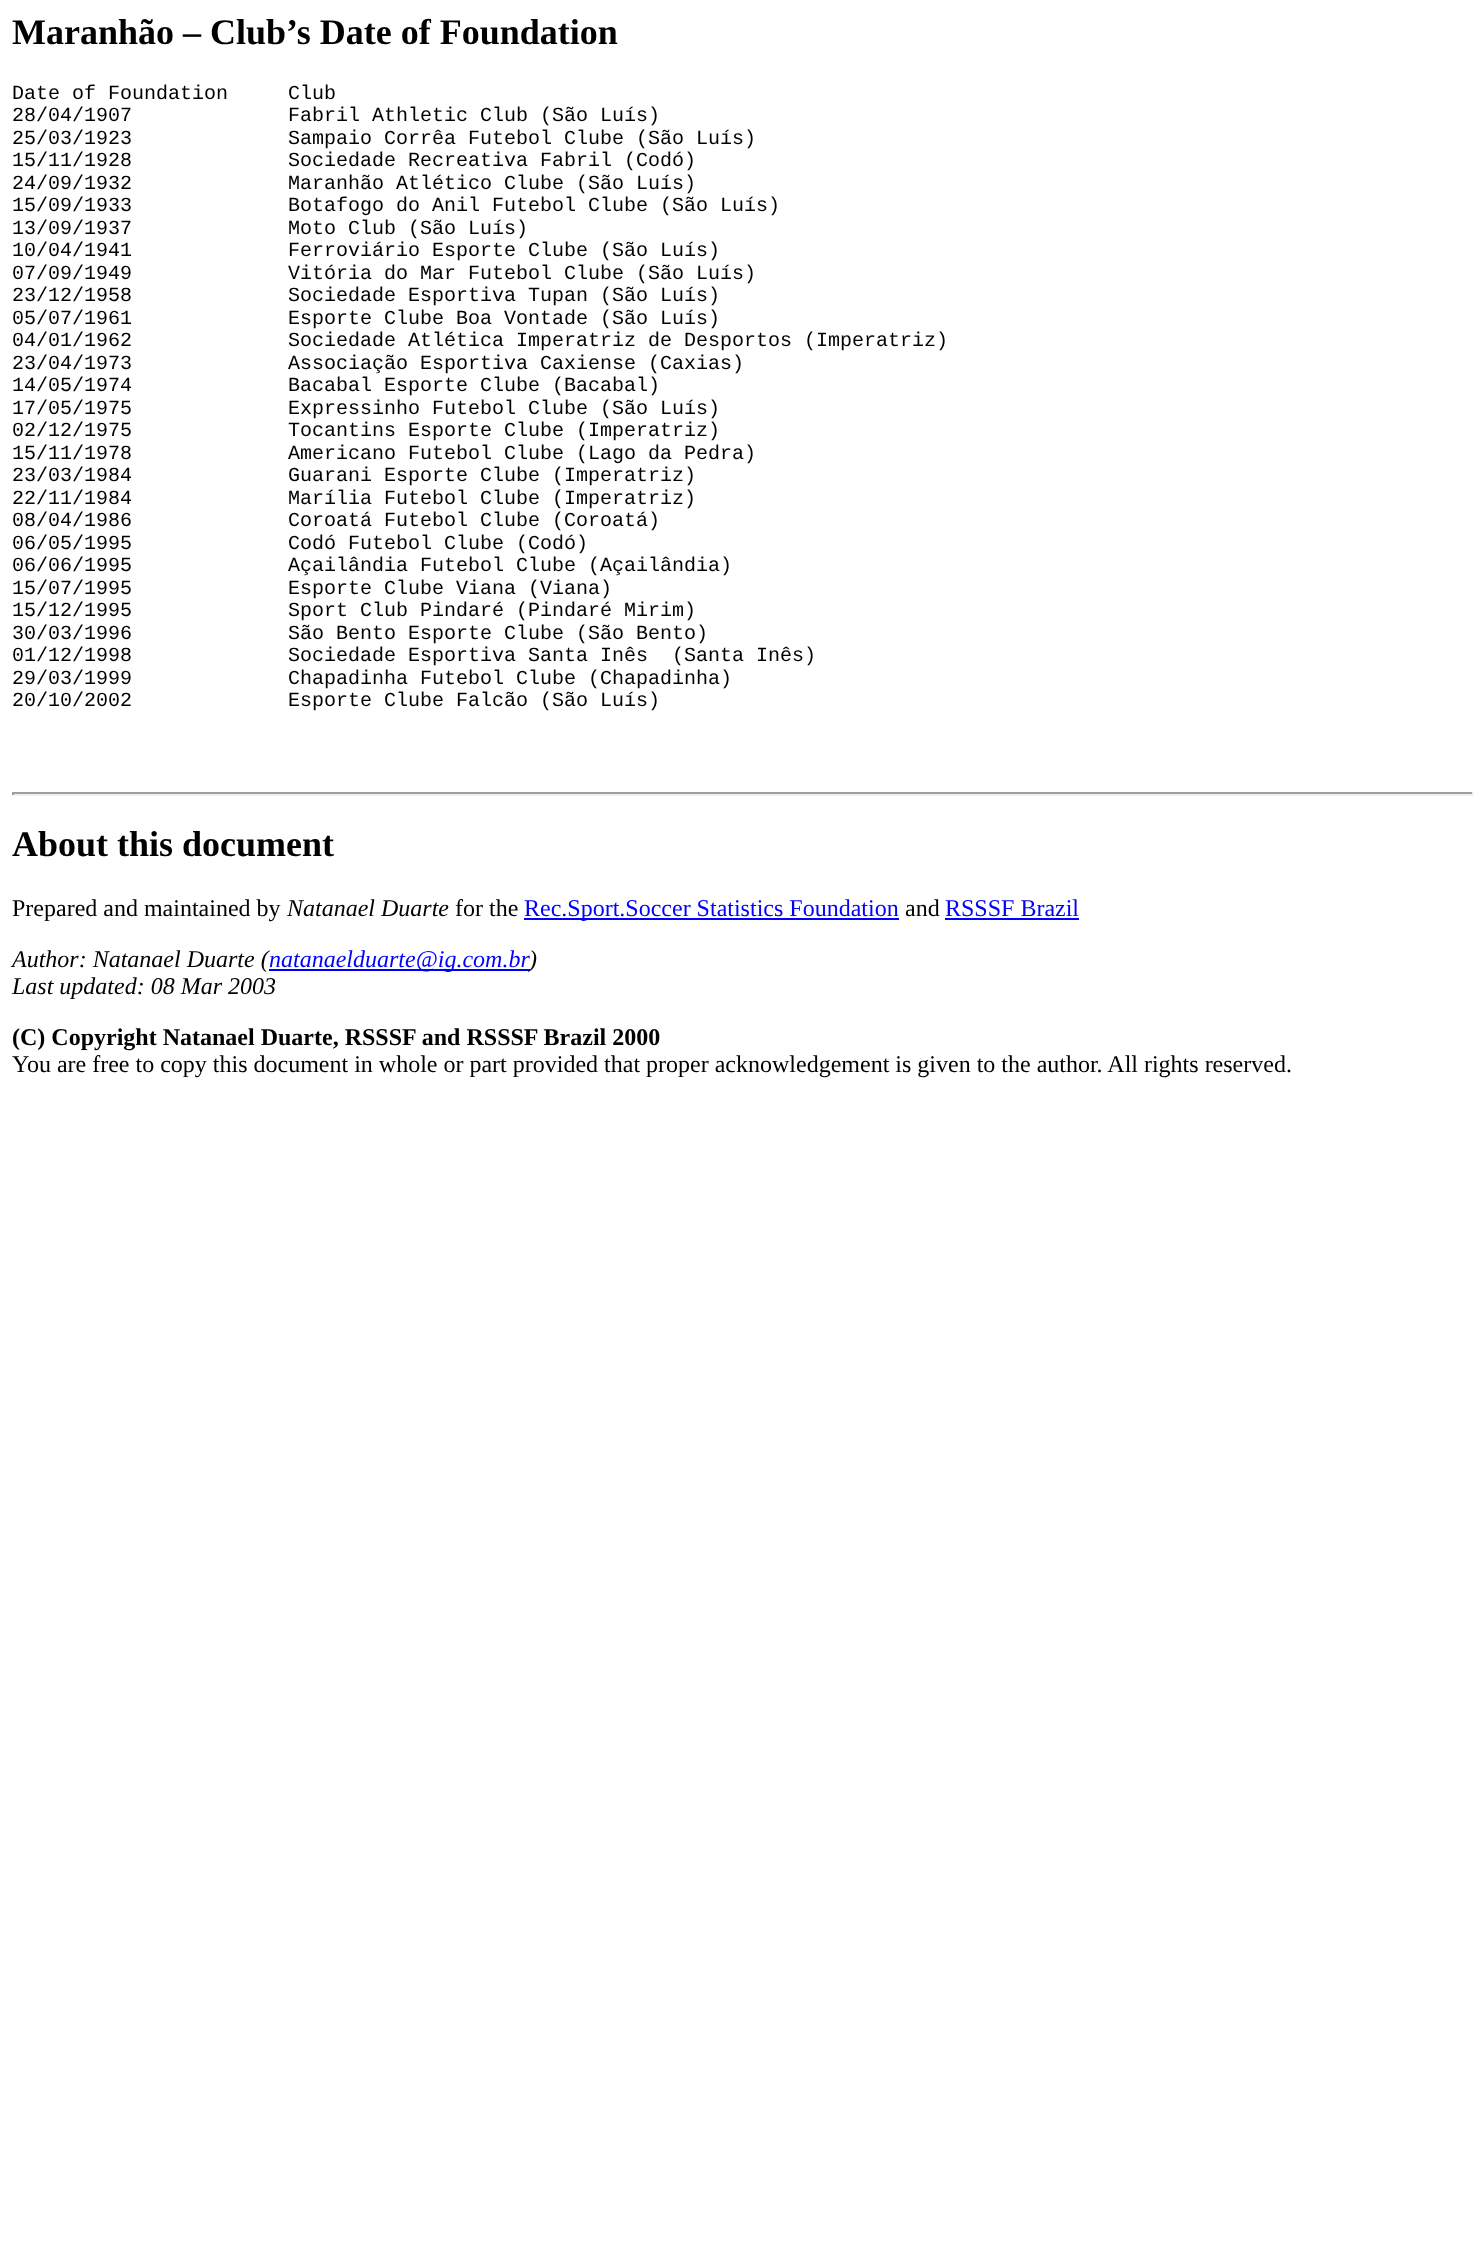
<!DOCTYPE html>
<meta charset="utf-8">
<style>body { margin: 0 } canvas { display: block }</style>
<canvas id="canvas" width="1484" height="2259"></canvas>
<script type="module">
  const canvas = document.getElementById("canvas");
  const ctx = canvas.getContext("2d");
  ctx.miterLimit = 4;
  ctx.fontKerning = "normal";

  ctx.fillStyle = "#ffffff";
  ctx.fillRect(0, 0, 1484, 2259);
  ctx.font = "bold 36px Liberation Serif";
  ctx.fillStyle = "#000000";
  ctx.fillText("Maranhão – Club’s Date of Foundation", 12, 44);
  ctx.font = "20px Liberation Mono";
  ctx.fillText("Date of Foundation", 12, 99);
  ctx.fillText("Club", 288, 99);
  ctx.fillText("28/04/1907", 12, 121);
  ctx.fillText("Fabril Athletic Club (São Luís)", 288, 121);
  ctx.fillText("25/03/1923", 12, 144);
  ctx.fillText("Sampaio Corrêa Futebol Clube (São Luís)", 288, 144);
  ctx.fillText("15/11/1928", 12, 166);
  ctx.fillText("Sociedade Recreativa Fabril (Codó)", 288, 166);
  ctx.fillText("24/09/1932", 12, 189);
  ctx.fillText("Maranhão Atlético Clube (São Luís)", 288, 189);
  ctx.fillText("15/09/1933", 12, 211);
  ctx.fillText("Botafogo do Anil Futebol Clube (São Luís)", 288, 211);
  ctx.fillText("13/09/1937", 12, 234);
  ctx.fillText("Moto Club (São Luís)", 288, 234);
  ctx.fillText("10/04/1941", 12, 256);
  ctx.fillText("Ferroviário Esporte Clube (São Luís)", 288, 256);
  ctx.fillText("07/09/1949", 12, 279);
  ctx.fillText("Vitória do Mar Futebol Clube (São Luís)", 288, 279);
  ctx.fillText("23/12/1958", 12, 301);
  ctx.fillText("Sociedade Esportiva Tupan (São Luís)", 288, 301);
  ctx.fillText("05/07/1961", 12, 324);
  ctx.fillText("Esporte Clube Boa Vontade (São Luís)", 288, 324);
  ctx.fillText("04/01/1962", 12, 346);
  ctx.fillText("Sociedade Atlética Imperatriz de Desportos (Imperatriz)", 288, 346);
  ctx.fillText("23/04/1973", 12, 369);
  ctx.fillText("Associação Esportiva Caxiense (Caxias)", 288, 369);
  ctx.fillText("14/05/1974", 12, 391);
  ctx.fillText("Bacabal Esporte Clube (Bacabal)", 288, 391);
  ctx.fillText("17/05/1975", 12, 414);
  ctx.fillText("Expressinho Futebol Clube (São Luís)", 288, 414);
  ctx.fillText("02/12/1975", 12, 436);
  ctx.fillText("Tocantins Esporte Clube (Imperatriz)", 288, 436);
  ctx.fillText("15/11/1978", 12, 459);
  ctx.fillText("Americano Futebol Clube (Lago da Pedra)", 288, 459);
  ctx.fillText("23/03/1984", 12, 481);
  ctx.fillText("Guarani Esporte Clube (Imperatriz)", 288, 481);
  ctx.fillText("22/11/1984", 12, 504);
  ctx.fillText("Marília Futebol Clube (Imperatriz)", 288, 504);
  ctx.fillText("08/04/1986", 12, 526);
  ctx.fillText("Coroatá Futebol Clube (Coroatá)", 288, 526);
  ctx.fillText("06/05/1995", 12, 549);
  ctx.fillText("Codó Futebol Clube (Codó)", 288, 549);
  ctx.fillText("06/06/1995", 12, 571);
  ctx.fillText("Açailândia Futebol Clube (Açailândia)", 288, 571);
  ctx.fillText("15/07/1995", 12, 594);
  ctx.fillText("Esporte Clube Viana (Viana)", 288, 594);
  ctx.fillText("15/12/1995", 12, 616);
  ctx.fillText("Sport Club Pindaré (Pindaré Mirim)", 288, 616);
  ctx.fillText("30/03/1996", 12, 639);
  ctx.fillText("São Bento Esporte Clube (São Bento)", 288, 639);
  ctx.fillText("01/12/1998", 12, 661);
  ctx.fillText("Sociedade Esportiva Santa Inês", 288, 661);
  ctx.fillText("(Santa Inês)", 672, 661);
  ctx.fillText("29/03/1999", 12, 684);
  ctx.fillText("Chapadinha Futebol Clube (Chapadinha)", 288, 684);
  ctx.fillText("20/10/2002", 12, 706);
  ctx.fillText("Esporte Clube Falcão (São Luís)", 288, 706);
  ctx.fillStyle = "#9f9f9f";
  ctx.fillRect(12, 792, 1461, 2);
  ctx.fillStyle = "#eeeeee";
  ctx.fillRect(1472, 792, 2, 3);
  ctx.fillRect(12, 794, 1461, 2);
  ctx.fillStyle = "#9f9f9f";
  ctx.fillRect(12, 792, 2, 3);
  ctx.font = "bold 36px Liberation Serif";
  ctx.fillStyle = "#000000";
  ctx.fillText("About this document", 12, 856);
  ctx.font = "24px Liberation Serif";
  ctx.fillText("Prepared and maintained by", 12, 916);
  ctx.font = "italic 24px Liberation Serif";
  ctx.fillText("Natanael Duarte", 287, 916);
  ctx.font = "24px Liberation Serif";
  ctx.fillText("for the", 455, 916);
  ctx.fillStyle = "#0000ff";
  ctx.fillRect(524, 918, 375, 2);
  ctx.fillText("Rec.Sport.Soccer Statistics Foundation", 524, 916);
  ctx.fillStyle = "#000000";
  ctx.fillText("and", 905, 916);
  ctx.fillStyle = "#0000ff";
  ctx.fillText("RSSSF Brazil", 945, 916);
  ctx.fillRect(945, 918, 134, 2);
  ctx.font = "italic 24px Liberation Serif";
  ctx.fillStyle = "#000000";
  ctx.fillText("Author: Natanael Duarte (", 12, 967);
  ctx.fillStyle = "#0000ff";
  ctx.fillRect(269, 969, 261, 2);
  ctx.fillText("natanaelduarte@ig.com.br", 269, 967);
  ctx.fillStyle = "#000000";
  ctx.fillText(")", 529, 967);
  ctx.fillText("Last updated: 08 Mar 2003", 12, 994);
  ctx.font = "bold 24px Liberation Serif";
  ctx.fillText("(C) Copyright Natanael Duarte, RSSSF and RSSSF Brazil 2000", 12, 1045);
  ctx.font = "24px Liberation Serif";
  ctx.fillText("You are free to copy this document in whole or part provided that proper acknowledgement is given to the author. All rights reserved.", 12, 1072);
</script>
